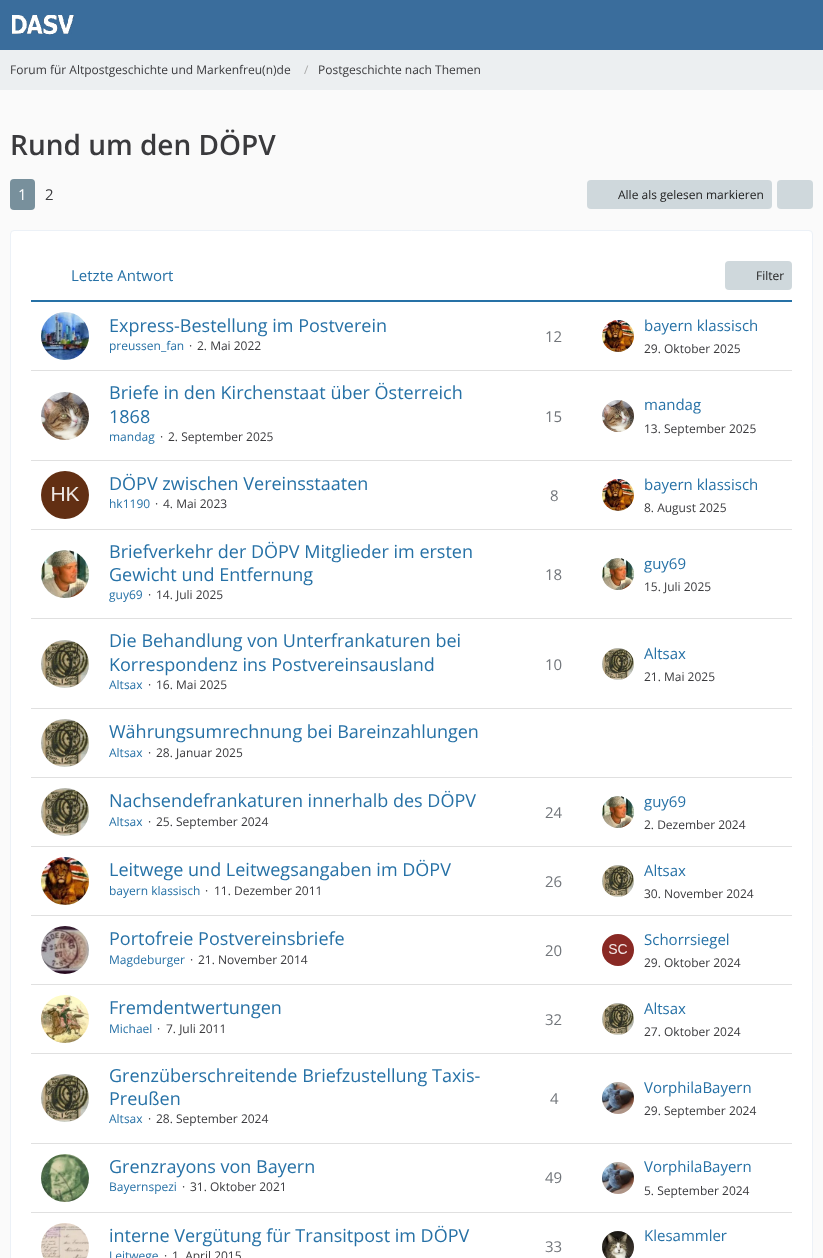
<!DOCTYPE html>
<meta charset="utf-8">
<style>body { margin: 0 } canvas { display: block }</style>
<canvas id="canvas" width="823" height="1258"></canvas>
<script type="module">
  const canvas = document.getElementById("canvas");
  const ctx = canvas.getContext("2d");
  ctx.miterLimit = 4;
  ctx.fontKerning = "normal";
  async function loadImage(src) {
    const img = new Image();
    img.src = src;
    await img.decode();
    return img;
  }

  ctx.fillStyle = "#fafafa";
  ctx.fillRect(0, 0, 823, 1258);
  ctx.fillStyle = "#3a6d9c";
  ctx.fillRect(0, 0, 823, 50);
  ctx.drawImage(await loadImage("img1.png"), 12, 15, 63, 20);
  ctx.fillStyle = "#eceff1";
  ctx.fillRect(0, 50, 823, 40);
  ctx.font = "12px Open Sans";
  ctx.fillStyle = "#3a3a3d";
  ctx.fillText("Forum für Altpostgeschichte und Markenfreu(n)de", 10, 74);
  ctx.fillStyle = "#aaaaaa";
  ctx.fillText("/", 304, 74);
  ctx.fillStyle = "#3a3a3d";
  ctx.fillText("Postgeschichte nach Themen", 318, 74);
  ctx.font = "600 28px Open Sans";
  ctx.fillText("Rund um den DÖPV", 10, 155);
  ctx.fillStyle = "#78909c";
  ctx.beginPath();
  ctx.roundRect(10, 179, 25, 31, 4);
  ctx.fill();
  ctx.font = "15px Open Sans";
  ctx.fillStyle = "#ffffff";
  ctx.fillText("1", 18, 200);
  ctx.fillStyle = "#3a3a3d";
  ctx.fillText("2", 45, 200);
  ctx.fillStyle = "#cfd8dc";
  ctx.beginPath();
  ctx.roundRect(587, 180, 185, 29, 4);
  ctx.fill();
  ctx.font = "12px Open Sans";
  ctx.fillStyle = "#212121";
  ctx.fillText("Alle als gelesen markieren", 618, 199);
  ctx.fillStyle = "#cfd8dc";
  ctx.beginPath();
  ctx.roundRect(777, 180, 36, 29, 4);
  ctx.fill();
  ctx.fillStyle = "#ffffff";
  ctx.beginPath();
  ctx.roundRect(10.5, 230.5, 802, 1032, 3.5);
  ctx.fill();
  ctx.strokeStyle = "#ecf1f7";
  ctx.stroke();
  ctx.fillStyle = "#2671a6";
  ctx.fillRect(31, 300, 761, 2);
  ctx.font = "15px Open Sans";
  ctx.fillText("Letzte Antwort", 71, 281);
  ctx.fillStyle = "#cfd8dc";
  ctx.beginPath();
  ctx.roundRect(725, 261, 67, 29, 4);
  ctx.fill();
  ctx.font = "12px Open Sans";
  ctx.fillStyle = "#212121";
  ctx.fillText("Filter", 756, 280);
  ctx.drawImage(await loadImage("img2.png"), 41, 312, 48, 48);
  ctx.font = "18px Open Sans";
  ctx.fillStyle = "#2671a6";
  ctx.fillText("Express-Bestellung im Postverein", 109, 332);
  ctx.font = "12px Open Sans";
  ctx.fillText("preussen_fan", 109, 350);
  ctx.fillStyle = "#3a3a3d";
  ctx.fillText("·", 189, 350);
  ctx.fillText("2. Mai 2022", 197, 350);
  ctx.font = "15px Open Sans";
  ctx.fillStyle = "#71757a";
  ctx.fillText("12", 545, 342);
  ctx.drawImage(await loadImage("img3.png"), 602, 320, 32, 32);
  ctx.fillStyle = "#2671a6";
  ctx.fillText("bayern klassisch", 644, 331);
  ctx.font = "12px Open Sans";
  ctx.fillStyle = "#3a3a3d";
  ctx.fillText("29. Oktober 2025", 644, 353);
  ctx.fillStyle = "#e0e0e0";
  ctx.fillRect(31, 370, 761, 1);
  ctx.drawImage(await loadImage("img4.png"), 41, 392, 48, 48);
  ctx.font = "18px Open Sans";
  ctx.fillStyle = "#2671a6";
  ctx.fillText("Briefe in den Kirchenstaat über Österreich", 109, 399);
  ctx.fillText("1868", 109, 423);
  ctx.font = "12px Open Sans";
  ctx.fillText("mandag", 109, 441);
  ctx.fillStyle = "#3a3a3d";
  ctx.fillText("·", 160, 441);
  ctx.fillText("2. September 2025", 168, 441);
  ctx.font = "15px Open Sans";
  ctx.fillStyle = "#71757a";
  ctx.fillText("15", 545, 422);
  ctx.drawImage(await loadImage("img5.png"), 602, 400, 32, 32);
  ctx.fillStyle = "#2671a6";
  ctx.fillText("mandag", 644, 410);
  ctx.font = "12px Open Sans";
  ctx.fillStyle = "#3a3a3d";
  ctx.fillText("13. September 2025", 644, 433);
  ctx.fillStyle = "#e0e0e0";
  ctx.fillRect(31, 460, 761, 1);
  ctx.drawImage(await loadImage("img6.png"), 41, 471, 48, 48);
  ctx.font = "18px Open Sans";
  ctx.fillStyle = "#2671a6";
  ctx.fillText("DÖPV zwischen Vereinsstaaten", 109, 490);
  ctx.font = "12px Open Sans";
  ctx.fillText("hk1190", 109, 508);
  ctx.fillStyle = "#3a3a3d";
  ctx.fillText("·", 155, 508);
  ctx.fillText("4. Mai 2023", 163, 508);
  ctx.font = "15px Open Sans";
  ctx.fillStyle = "#71757a";
  ctx.fillText("8", 550, 501);
  ctx.drawImage(await loadImage("img7.png"), 602, 479, 32, 32);
  ctx.fillStyle = "#2671a6";
  ctx.fillText("bayern klassisch", 644, 490);
  ctx.font = "12px Open Sans";
  ctx.fillStyle = "#3a3a3d";
  ctx.fillText("8. August 2025", 644, 512);
  ctx.fillStyle = "#e0e0e0";
  ctx.fillRect(31, 529, 761, 1);
  ctx.drawImage(await loadImage("img8.png"), 41, 550, 48, 48);
  ctx.font = "18px Open Sans";
  ctx.fillStyle = "#2671a6";
  ctx.fillText("Briefverkehr der DÖPV Mitglieder im ersten", 109, 558);
  ctx.fillText("Gewicht und Entfernung", 109, 581);
  ctx.font = "12px Open Sans";
  ctx.fillText("guy69", 109, 599);
  ctx.fillStyle = "#3a3a3d";
  ctx.fillText("·", 148, 599);
  ctx.fillText("14. Juli 2025", 156, 599);
  ctx.font = "15px Open Sans";
  ctx.fillStyle = "#71757a";
  ctx.fillText("18", 545, 580);
  ctx.drawImage(await loadImage("img9.png"), 602, 558, 32, 32);
  ctx.fillStyle = "#2671a6";
  ctx.fillText("guy69", 644, 569);
  ctx.font = "12px Open Sans";
  ctx.fillStyle = "#3a3a3d";
  ctx.fillText("15. Juli 2025", 644, 591);
  ctx.fillStyle = "#e0e0e0";
  ctx.fillRect(31, 618, 761, 1);
  ctx.drawImage(await loadImage("img10.png"), 41, 640, 48, 48);
  ctx.font = "18px Open Sans";
  ctx.fillStyle = "#2671a6";
  ctx.fillText("Die Behandlung von Unterfrankaturen bei", 109, 647);
  ctx.fillText("Korrespondenz ins Postvereinsausland", 109, 671);
  ctx.font = "12px Open Sans";
  ctx.fillText("Altsax", 109, 689);
  ctx.fillStyle = "#3a3a3d";
  ctx.fillText("·", 148, 689);
  ctx.fillText("16. Mai 2025", 156, 689);
  ctx.font = "15px Open Sans";
  ctx.fillStyle = "#71757a";
  ctx.fillText("10", 545, 670);
  ctx.drawImage(await loadImage("img11.png"), 602, 648, 32, 32);
  ctx.fillStyle = "#2671a6";
  ctx.fillText("Altsax", 644, 659);
  ctx.font = "12px Open Sans";
  ctx.fillStyle = "#3a3a3d";
  ctx.fillText("21. Mai 2025", 644, 681);
  ctx.fillStyle = "#e0e0e0";
  ctx.fillRect(31, 708, 761, 1);
  ctx.drawImage(await loadImage("img12.png"), 41, 719, 48, 48);
  ctx.font = "18px Open Sans";
  ctx.fillStyle = "#2671a6";
  ctx.fillText("Währungsumrechnung bei Bareinzahlungen", 109, 738);
  ctx.font = "12px Open Sans";
  ctx.fillText("Altsax", 109, 757);
  ctx.fillStyle = "#3a3a3d";
  ctx.fillText("·", 148, 757);
  ctx.fillText("28. Januar 2025", 156, 757);
  ctx.fillStyle = "#e0e0e0";
  ctx.fillRect(31, 777, 761, 1);
  ctx.drawImage(await loadImage("img10.png"), 41, 788, 48, 48);
  ctx.font = "18px Open Sans";
  ctx.fillStyle = "#2671a6";
  ctx.fillText("Nachsendefrankaturen innerhalb des DÖPV", 109, 807);
  ctx.font = "12px Open Sans";
  ctx.fillText("Altsax", 109, 826);
  ctx.fillStyle = "#3a3a3d";
  ctx.fillText("·", 148, 826);
  ctx.fillText("25. September 2024", 156, 826);
  ctx.font = "15px Open Sans";
  ctx.fillStyle = "#71757a";
  ctx.fillText("24", 545, 818);
  ctx.drawImage(await loadImage("img9.png"), 602, 796, 32, 32);
  ctx.fillStyle = "#2671a6";
  ctx.fillText("guy69", 644, 807);
  ctx.font = "12px Open Sans";
  ctx.fillStyle = "#3a3a3d";
  ctx.fillText("2. Dezember 2024", 644, 829);
  ctx.fillStyle = "#e0e0e0";
  ctx.fillRect(31, 846, 761, 1);
  ctx.drawImage(await loadImage("img13.png"), 41, 857, 48, 48);
  ctx.font = "18px Open Sans";
  ctx.fillStyle = "#2671a6";
  ctx.fillText("Leitwege und Leitwegsangaben im DÖPV", 109, 876);
  ctx.font = "12px Open Sans";
  ctx.fillText("bayern klassisch", 109, 895);
  ctx.fillStyle = "#3a3a3d";
  ctx.fillText("·", 205, 895);
  ctx.fillText("11. Dezember 2011", 214, 895);
  ctx.font = "15px Open Sans";
  ctx.fillStyle = "#71757a";
  ctx.fillText("26", 545, 887);
  ctx.drawImage(await loadImage("img11.png"), 602, 865, 32, 32);
  ctx.fillStyle = "#2671a6";
  ctx.fillText("Altsax", 644, 876);
  ctx.font = "12px Open Sans";
  ctx.fillStyle = "#3a3a3d";
  ctx.fillText("30. November 2024", 644, 898);
  ctx.fillStyle = "#e0e0e0";
  ctx.fillRect(31, 915, 761, 1);
  ctx.drawImage(await loadImage("img14.png"), 41, 926, 48, 48);
  ctx.font = "18px Open Sans";
  ctx.fillStyle = "#2671a6";
  ctx.fillText("Portofreie Postvereinsbriefe", 109, 945);
  ctx.font = "12px Open Sans";
  ctx.fillText("Magdeburger", 109, 964);
  ctx.fillStyle = "#3a3a3d";
  ctx.fillText("·", 190, 964);
  ctx.fillText("21. November 2014", 198, 964);
  ctx.font = "15px Open Sans";
  ctx.fillStyle = "#71757a";
  ctx.fillText("20", 545, 956);
  ctx.drawImage(await loadImage("img15.png"), 602, 934, 32, 32);
  ctx.fillStyle = "#2671a6";
  ctx.fillText("Schorrsiegel", 644, 945);
  ctx.font = "12px Open Sans";
  ctx.fillStyle = "#3a3a3d";
  ctx.fillText("29. Oktober 2024", 644, 967);
  ctx.fillStyle = "#e0e0e0";
  ctx.fillRect(31, 984, 761, 1);
  ctx.drawImage(await loadImage("img16.png"), 41, 995, 48, 48);
  ctx.font = "18px Open Sans";
  ctx.fillStyle = "#2671a6";
  ctx.fillText("Fremdentwertungen", 109, 1014);
  ctx.font = "12px Open Sans";
  ctx.fillText("Michael", 109, 1033);
  ctx.fillStyle = "#3a3a3d";
  ctx.fillText("·", 157, 1033);
  ctx.fillText("7. Juli 2011", 166, 1033);
  ctx.font = "15px Open Sans";
  ctx.fillStyle = "#71757a";
  ctx.fillText("32", 545, 1025);
  ctx.drawImage(await loadImage("img17.png"), 602, 1003, 32, 32);
  ctx.fillStyle = "#2671a6";
  ctx.fillText("Altsax", 644, 1014);
  ctx.font = "12px Open Sans";
  ctx.fillStyle = "#3a3a3d";
  ctx.fillText("27. Oktober 2024", 644, 1036);
  ctx.fillStyle = "#e0e0e0";
  ctx.fillRect(31, 1053, 761, 1);
  ctx.drawImage(await loadImage("img10.png"), 41, 1074, 48, 48);
  ctx.font = "18px Open Sans";
  ctx.fillStyle = "#2671a6";
  ctx.fillText("Grenzüberschreitende Briefzustellung Taxis-", 109, 1082);
  ctx.fillText("Preußen", 109, 1105);
  ctx.font = "12px Open Sans";
  ctx.fillText("Altsax", 109, 1123);
  ctx.fillStyle = "#3a3a3d";
  ctx.fillText("·", 148, 1123);
  ctx.fillText("28. September 2024", 156, 1123);
  ctx.font = "15px Open Sans";
  ctx.fillStyle = "#71757a";
  ctx.fillText("4", 550, 1104);
  ctx.drawImage(await loadImage("img18.png"), 602, 1082, 32, 32);
  ctx.fillStyle = "#2671a6";
  ctx.fillText("VorphilaBayern", 644, 1093);
  ctx.font = "12px Open Sans";
  ctx.fillStyle = "#3a3a3d";
  ctx.fillText("29. September 2024", 644, 1115);
  ctx.fillStyle = "#e0e0e0";
  ctx.fillRect(31, 1143, 761, 1);
  ctx.drawImage(await loadImage("img19.png"), 41, 1154, 48, 48);
  ctx.font = "18px Open Sans";
  ctx.fillStyle = "#2671a6";
  ctx.fillText("Grenzrayons von Bayern", 109, 1173);
  ctx.font = "12px Open Sans";
  ctx.fillText("Bayernspezi", 109, 1191);
  ctx.fillStyle = "#3a3a3d";
  ctx.fillText("·", 182, 1191);
  ctx.fillText("31. Oktober 2021", 190, 1191);
  ctx.font = "15px Open Sans";
  ctx.fillStyle = "#71757a";
  ctx.fillText("49", 545, 1183);
  ctx.drawImage(await loadImage("img18.png"), 602, 1162, 32, 32);
  ctx.fillStyle = "#2671a6";
  ctx.fillText("VorphilaBayern", 644, 1172);
  ctx.font = "12px Open Sans";
  ctx.fillStyle = "#3a3a3d";
  ctx.fillText("5. September 2024", 644, 1195);
  ctx.fillStyle = "#e0e0e0";
  ctx.fillRect(31, 1212, 761, 1);
  ctx.drawImage(await loadImage("img20.png"), 41, 1223, 48, 35);
  ctx.font = "18px Open Sans";
  ctx.fillStyle = "#2671a6";
  ctx.fillText("interne Vergütung für Transitpost im DÖPV", 109, 1242);
  ctx.font = "12px Open Sans";
  ctx.fillText("Leitwege", 109, 1260);
  ctx.fillStyle = "#3a3a3d";
  ctx.fillText("·", 164, 1260);
  ctx.fillText("1. April 2015", 172, 1260);
  ctx.drawImage(await loadImage("img21.png"), 602, 1231, 32, 27);
  ctx.font = "15px Open Sans";
  ctx.fillStyle = "#2671a6";
  ctx.fillText("Klesammler", 644, 1241);
  ctx.fillStyle = "#71757a";
  ctx.fillText("33", 545, 1252);
</script>
